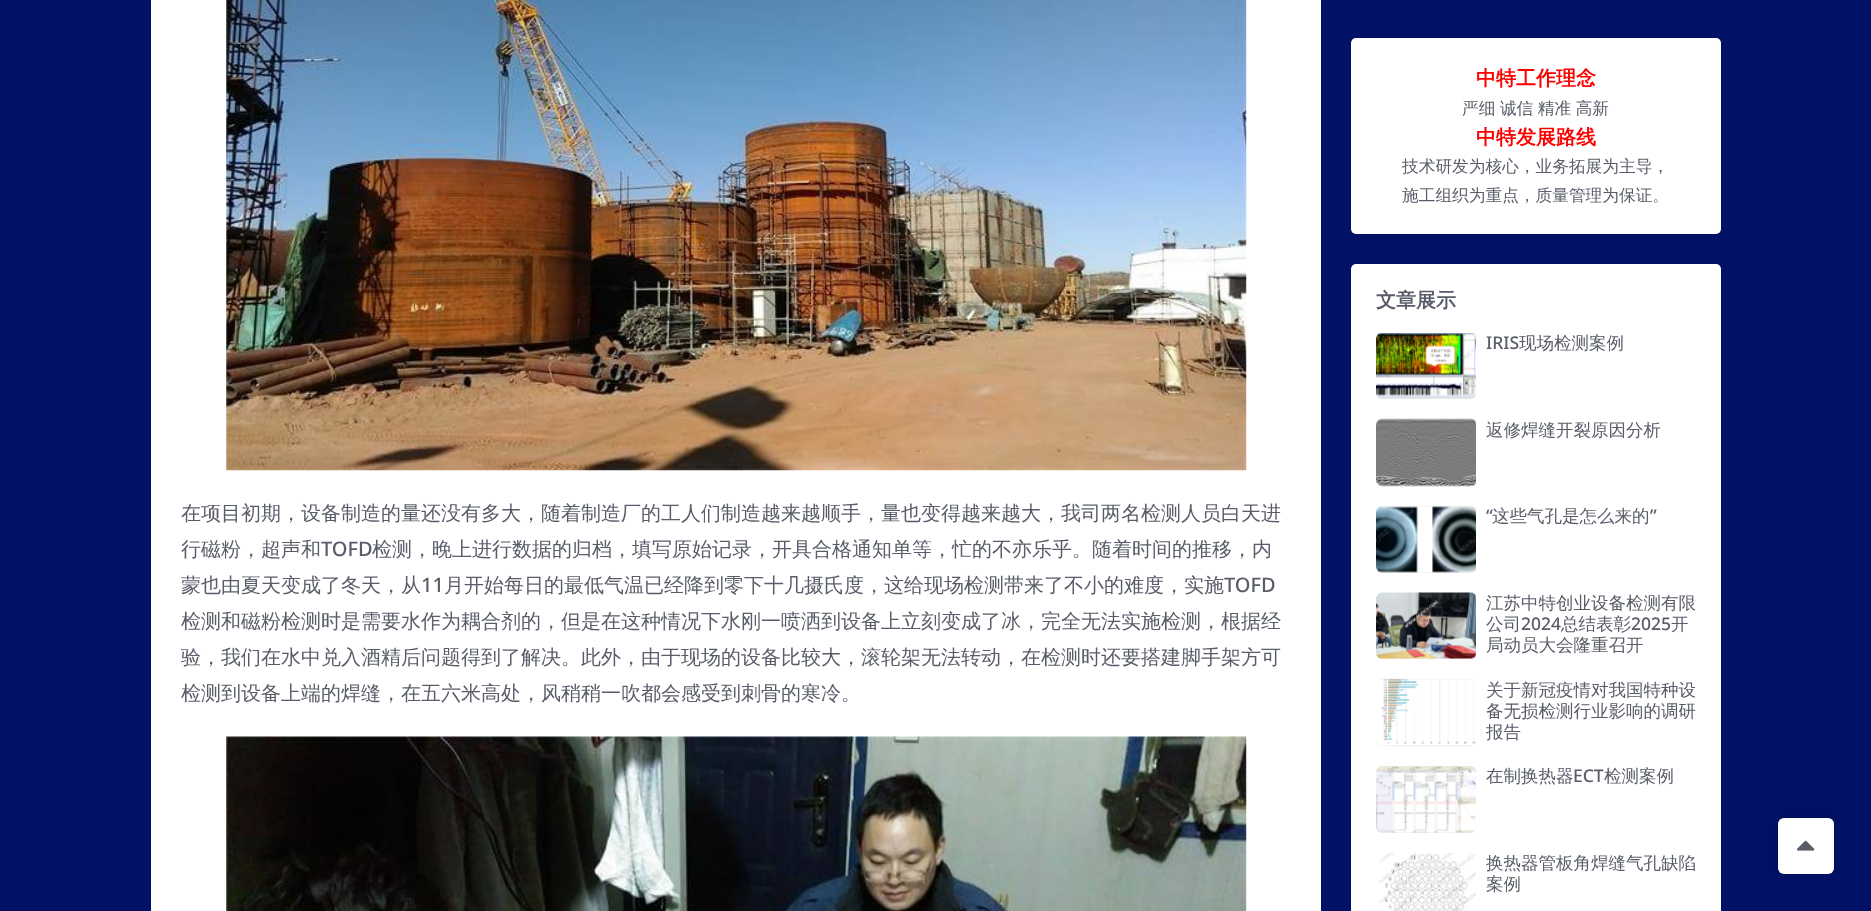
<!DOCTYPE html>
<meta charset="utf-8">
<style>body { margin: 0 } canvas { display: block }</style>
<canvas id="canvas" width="1871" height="911"></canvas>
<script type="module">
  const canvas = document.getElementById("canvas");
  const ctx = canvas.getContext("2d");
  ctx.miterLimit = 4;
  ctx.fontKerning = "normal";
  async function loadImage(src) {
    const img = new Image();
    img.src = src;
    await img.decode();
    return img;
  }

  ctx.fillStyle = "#001166";
  ctx.fillRect(0, 0, 1871, 911);
  ctx.fillStyle = "#ffffff";
  ctx.fillRect(151, 0, 1170, 911);
  ctx.drawImage(await loadImage("img1.png"), 226, 0, 1021, 471);
  ctx.font = "500 20px WenQuanYi Zen Hei";
  ctx.fillStyle = "#595d69";
  ctx.fillText("在项目初期，设备制造的量还没有多大，随着制造厂的工人们制造越来越顺手，量也变得越来越大，我司两名检测人员白天进", 181, 520);
  ctx.fillText("行磁粉，超声和", 181, 556);
  ctx.font = "500 20px Noto Sans";
  ctx.fillText("TOFD", 321, 556);
  ctx.font = "500 20px WenQuanYi Zen Hei";
  ctx.fillText("检测，晚上进行数据的归档，填写原始记录，开具合格通知单等，忙的不亦乐乎。随着时间的推移，内", 372, 556);
  ctx.fillText("蒙也由夏天变成了冬天，从", 181, 592);
  ctx.font = "500 20px Noto Sans";
  ctx.fillText("11", 421, 592);
  ctx.font = "500 20px WenQuanYi Zen Hei";
  ctx.fillText("月开始每日的最低气温已经降到零下十几摄氏度，这给现场检测带来了不小的难度，实施", 444, 592);
  ctx.font = "500 20px Noto Sans";
  ctx.fillText("TOFD", 1224, 592);
  ctx.font = "500 20px WenQuanYi Zen Hei";
  ctx.fillText("检测和磁粉检测时是需要水作为耦合剂的，但是在这种情况下水刚一喷洒到设备上立刻变成了冰，完全无法实施检测，根据经", 181, 628);
  ctx.fillText("验，我们在水中兑入酒精后问题得到了解决。此外，由于现场的设备比较大，滚轮架无法转动，在检测时还要搭建脚手架方可", 181, 664);
  ctx.fillText("检测到设备上端的焊缝，在五六米高处，风稍稍一吹都会感受到刺骨的寒冷。", 181, 700);
  ctx.drawImage(await loadImage("img2.png"), 226, 736, 1021, 175);
  ctx.fillStyle = "#ffffff";
  ctx.beginPath();
  ctx.roundRect(1351, 38, 370, 196, 5);
  ctx.fill();
  ctx.font = "bold 20px WenQuanYi Zen Hei";
  ctx.fillStyle = "#fd0000";
  ctx.fillText("中特工作理念", 1476, 85);
  ctx.wordSpacing = "-0.5px";
  ctx.font = "500 16.7px WenQuanYi Zen Hei";
  ctx.fillStyle = "#595d69";
  ctx.fillText("严细 诚信 精准 高新", 1462, 114);
  ctx.wordSpacing = "0px";
  ctx.font = "bold 20px WenQuanYi Zen Hei";
  ctx.fillStyle = "#fd0000";
  ctx.fillText("中特发展路线", 1476, 144);
  ctx.font = "500 16.7px WenQuanYi Zen Hei";
  ctx.fillStyle = "#595d69";
  ctx.fillText("技术研发为核心，业务拓展为主导，", 1402, 172);
  ctx.fillText("施工组织为重点，质量管理为保证。", 1402, 201);
  ctx.fillStyle = "#ffffff";
  ctx.beginPath();
  ctx.roundRect(1351, 264, 370, 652, 5);
  ctx.fill();
  ctx.font = "bold 20px WenQuanYi Zen Hei";
  ctx.fillStyle = "#595d69";
  ctx.fillText("文章展示", 1376, 307);
  ctx.save();
  ctx.beginPath();
  ctx.roundRect(1376, 333, 100, 66, 5);
  ctx.clip();
  ctx.fillStyle = "#e7e7e7";
  ctx.beginPath();
  ctx.roundRect(1376, 333, 100, 66, [6, 5, 5, 6]);
  ctx.fill();
  ctx.restore();
  ctx.drawImage(await loadImage("img3.png"), 1376, 333, 100, 66);
  ctx.font = "500 17.5px Noto Sans";
  ctx.fillText("IRIS", 1486, 349);
  ctx.font = "500 17.5px WenQuanYi Zen Hei";
  ctx.fillText("现场检测案例", 1519, 349);
  ctx.save();
  ctx.beginPath();
  ctx.roundRect(1376, 419, 100, 67, 5);
  ctx.clip();
  ctx.fillStyle = "#e7e7e7";
  ctx.beginPath();
  ctx.roundRect(1376, 419, 100, 67, [6, 5, 5, 6]);
  ctx.fill();
  ctx.restore();
  ctx.drawImage(await loadImage("img4.png"), 1376, 418, 100, 69);
  ctx.fillText("返修焊缝开裂原因分析", 1486, 436);
  ctx.save();
  ctx.beginPath();
  ctx.roundRect(1376, 506, 100, 67, 5);
  ctx.clip();
  ctx.fillStyle = "#e7e7e7";
  ctx.beginPath();
  ctx.roundRect(1376, 506, 100, 67, [6, 5, 5, 6]);
  ctx.fill();
  ctx.restore();
  ctx.drawImage(await loadImage("img5.png"), 1376, 506, 100, 67);
  ctx.font = "500 17.5px Noto Sans";
  ctx.fillText("“", 1486, 522);
  ctx.font = "500 17.5px WenQuanYi Zen Hei";
  ctx.fillText("这些气孔是怎么来的", 1492, 522);
  ctx.font = "500 17.5px Noto Sans";
  ctx.fillText("”", 1650, 522);
  ctx.save();
  ctx.beginPath();
  ctx.roundRect(1376, 593, 100, 66, 5);
  ctx.clip();
  ctx.fillStyle = "#e7e7e7";
  ctx.beginPath();
  ctx.roundRect(1376, 593, 100, 66, [6, 5, 5, 6]);
  ctx.fill();
  ctx.restore();
  ctx.drawImage(await loadImage("img6.png"), 1376, 592, 100, 67);
  ctx.font = "500 17.5px WenQuanYi Zen Hei";
  ctx.fillText("江苏中特创业设备检测有限", 1486, 609);
  ctx.fillText("公司", 1486, 630);
  ctx.font = "500 17.5px Noto Sans";
  ctx.fillText("2024", 1521, 630);
  ctx.font = "500 17.5px WenQuanYi Zen Hei";
  ctx.fillText("总结表彰", 1561, 630);
  ctx.font = "500 17.5px Noto Sans";
  ctx.fillText("2025", 1631, 630);
  ctx.font = "500 17.5px WenQuanYi Zen Hei";
  ctx.fillText("开", 1671, 630);
  ctx.fillText("局动员大会隆重召开", 1486, 651);
  ctx.save();
  ctx.beginPath();
  ctx.roundRect(1376, 679, 100, 67, 5);
  ctx.clip();
  ctx.fillStyle = "#e7e7e7";
  ctx.beginPath();
  ctx.roundRect(1376, 679, 100, 67, [6, 5, 5, 6]);
  ctx.fill();
  ctx.restore();
  ctx.drawImage(await loadImage("img7.png"), 1376, 678, 100, 69);
  ctx.fillText("关于新冠疫情对我国特种设", 1486, 696);
  ctx.fillText("备无损检测行业影响的调研", 1486, 717);
  ctx.save();
  ctx.beginPath();
  ctx.rect(1486, 679, 210, 64);
  ctx.clip();
  ctx.fillText("报告", 1486, 738);
  ctx.restore();
  ctx.save();
  ctx.beginPath();
  ctx.roundRect(1376, 766, 100, 67, 5);
  ctx.clip();
  ctx.fillStyle = "#e7e7e7";
  ctx.beginPath();
  ctx.roundRect(1376, 766, 100, 67, [6, 5, 5, 6]);
  ctx.fill();
  ctx.restore();
  ctx.drawImage(await loadImage("img8.png"), 1376, 766, 100, 67);
  ctx.fillText("在制换热器", 1486, 782);
  ctx.font = "500 17.5px Noto Sans";
  ctx.fillText("ECT", 1573, 782);
  ctx.font = "500 17.5px WenQuanYi Zen Hei";
  ctx.fillText("检测案例", 1604, 782);
  ctx.drawImage(await loadImage("img9.png"), 1376, 852, 100, 59);
  ctx.fillText("换热器管板角焊缝气孔缺陷", 1486, 869);
  ctx.fillText("案例", 1486, 890);
  ctx.fillStyle = "rgba(0, 0, 0, 0.1)";
  ctx.filter = "blur(6px)";
  ctx.beginPath();
  ctx.roundRect(1778, 818, 56, 56, 6);
  ctx.fill();
  ctx.filter = "none";
  ctx.fillStyle = "#ffffff";
  ctx.beginPath();
  ctx.roundRect(1778, 818, 56, 56, 6);
  ctx.fill();
  ctx.drawImage(await loadImage("img10.png"), 1796, 840, 19, 11);
</script>
